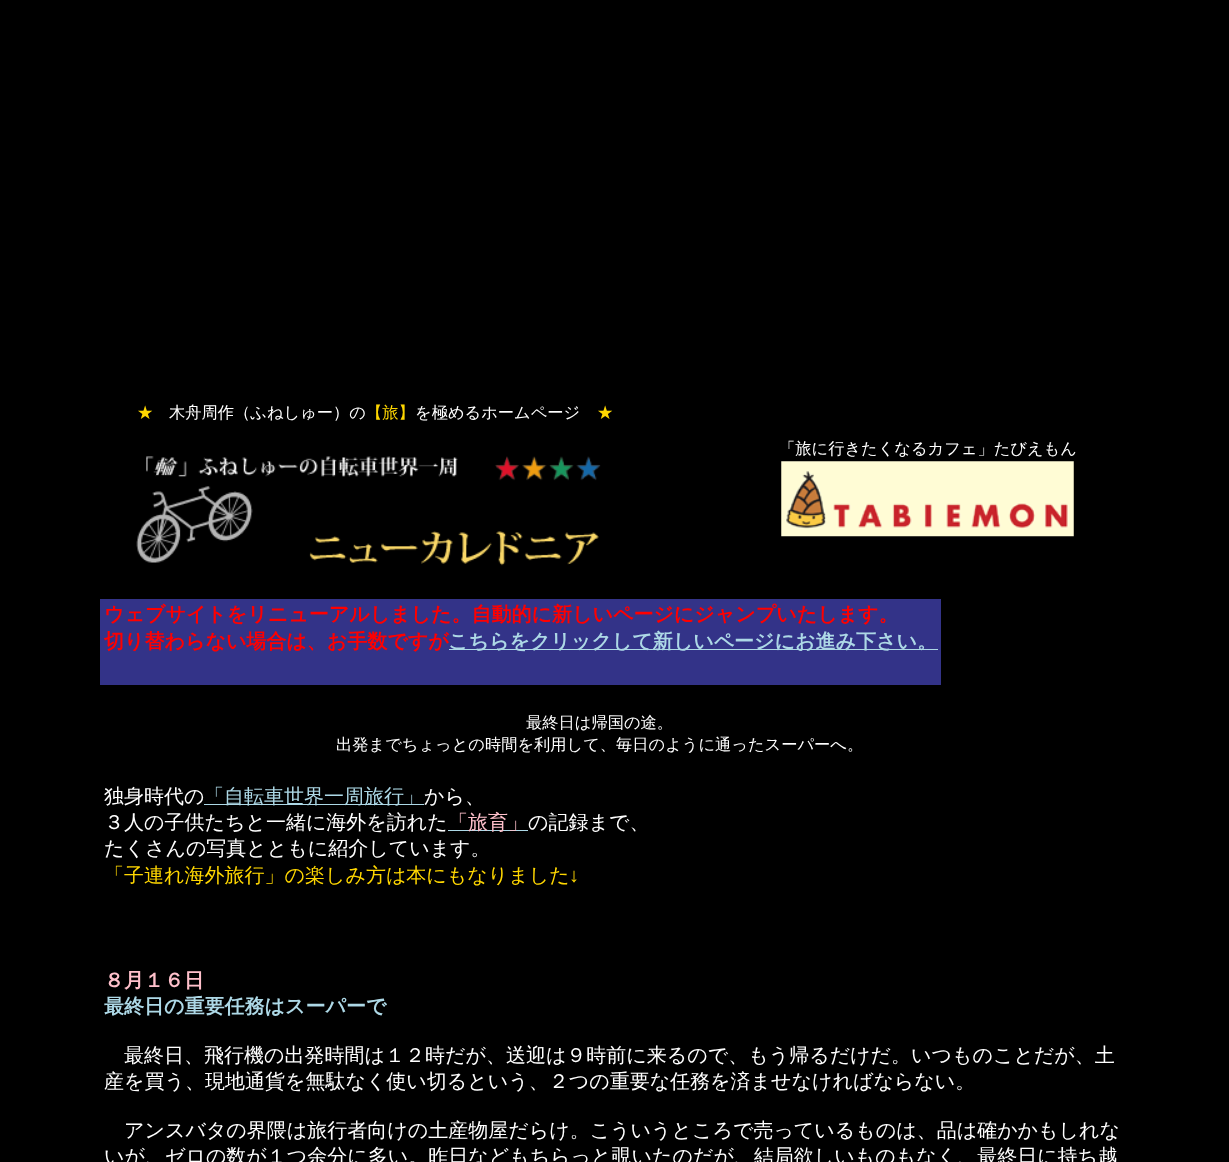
<!DOCTYPE html>
<meta charset="utf-8">
<style>body { margin: 0 } canvas { display: block }</style>
<canvas id="canvas" width="1229" height="1162"></canvas>
<script type="module">
  const canvas = document.getElementById("canvas");
  const ctx = canvas.getContext("2d");
  ctx.miterLimit = 4;
  ctx.fontKerning = "normal";
  async function loadImage(src) {
    const img = new Image();
    img.src = src;
    await img.decode();
    return img;
  }

  ctx.fillStyle = "#000000";
  ctx.fillRect(0, 0, 1229, 1162);
  ctx.font = "500 16.25px WenQuanYi Zen Hei";
  ctx.fillStyle = "#ffd700";
  ctx.fillText("★", 137, 418);
  ctx.fillStyle = "#ffffff";
  ctx.fillText("木舟周作（ふねしゅー）の", 169, 418);
  ctx.fillStyle = "#ffd700";
  ctx.fillText("【旅】", 366, 418);
  ctx.fillStyle = "#ffffff";
  ctx.fillText("を極めるホームページ", 415, 418);
  ctx.fillStyle = "#ffd700";
  ctx.fillText("★", 597, 418);
  ctx.drawImage(await loadImage("img1.png"), 136, 456, 465, 110);
  ctx.fillStyle = "#ffffff";
  ctx.fillText("「旅に行きたくなるカフェ」たびえもん", 779, 454);
  ctx.drawImage(await loadImage("img2.png"), 781, 461, 293, 76);
  ctx.fillStyle = "#333388";
  ctx.fillRect(100, 599, 841, 86);
  ctx.font = "bold 20px WenQuanYi Zen Hei";
  ctx.fillStyle = "#ff0000";
  ctx.fillText("ウェブサイトをリニューアルしました。自動的に新しいページにジャンプいたします。", 104, 621);
  ctx.fillText("切り替わらない場合は、お手数ですが", 104, 648);
  ctx.fillStyle = "#add8e6";
  ctx.fillRect(449, 649, 489, 1);
  ctx.fillText("こちらをクリックして新しいページにお進み下さい。", 448, 648);
  ctx.font = "500 16.25px WenQuanYi Zen Hei";
  ctx.fillStyle = "#ffffff";
  ctx.fillText("最終日は帰国の途。", 526, 728);
  ctx.fillText("出発までちょっとの時間を利用して、毎日のように通ったスーパーへ。", 336, 750);
  ctx.font = "500 20px WenQuanYi Zen Hei";
  ctx.fillText("独身時代の", 104, 803);
  ctx.fillStyle = "#add8e6";
  ctx.fillRect(204, 804, 220, 1);
  ctx.fillText("「自転車世界一周旅行」", 204, 803);
  ctx.fillStyle = "#ffffff";
  ctx.fillText("から、", 424, 803);
  ctx.fillText("３人の子供たちと一緒に海外を訪れた", 104, 829);
  ctx.fillStyle = "#add8e6";
  ctx.fillRect(448, 830, 80, 1);
  ctx.fillStyle = "#ffc0cb";
  ctx.fillText("「旅育」", 448, 829);
  ctx.fillStyle = "#ffffff";
  ctx.fillText("の記録まで、", 528, 829);
  ctx.fillText("たくさんの写真とともに紹介しています。", 104, 855);
  ctx.fillStyle = "#ffd700";
  ctx.fillText("「子連れ海外旅行」の楽しみ方は本にもなりました", 104, 882);
  ctx.font = "20px Liberation Serif";
  ctx.fillText("↓", 569, 882);
  ctx.font = "bold 20px WenQuanYi Zen Hei";
  ctx.fillStyle = "#ffc0cb";
  ctx.fillText("８月１６日", 104, 987);
  ctx.fillStyle = "#add8e6";
  ctx.fillText("最終日の重要任務はスーパーで", 104, 1013);
  ctx.font = "500 20px WenQuanYi Zen Hei";
  ctx.fillStyle = "#ffffff";
  ctx.fillText("最終日、飛行機の出発時間は１２時だが、送迎は９時前に来るので、もう帰るだけだ。いつものことだが、土", 124, 1062);
  ctx.fillText("産を買う、現地通貨を無駄なく使い切るという、２つの重要な任務を済ませなければならない。", 104, 1088);
  ctx.fillText("アンスバタの界隈は旅行者向けの土産物屋だらけ。こういうところで売っているものは、品は確かかもしれな", 124, 1137);
  ctx.fillText("いが、ゼロの数が１つ余分に多い。昨日などもちらっと覗いたのだが、結局欲しいものもなく、最終日に持ち越", 104, 1163);
</script>
